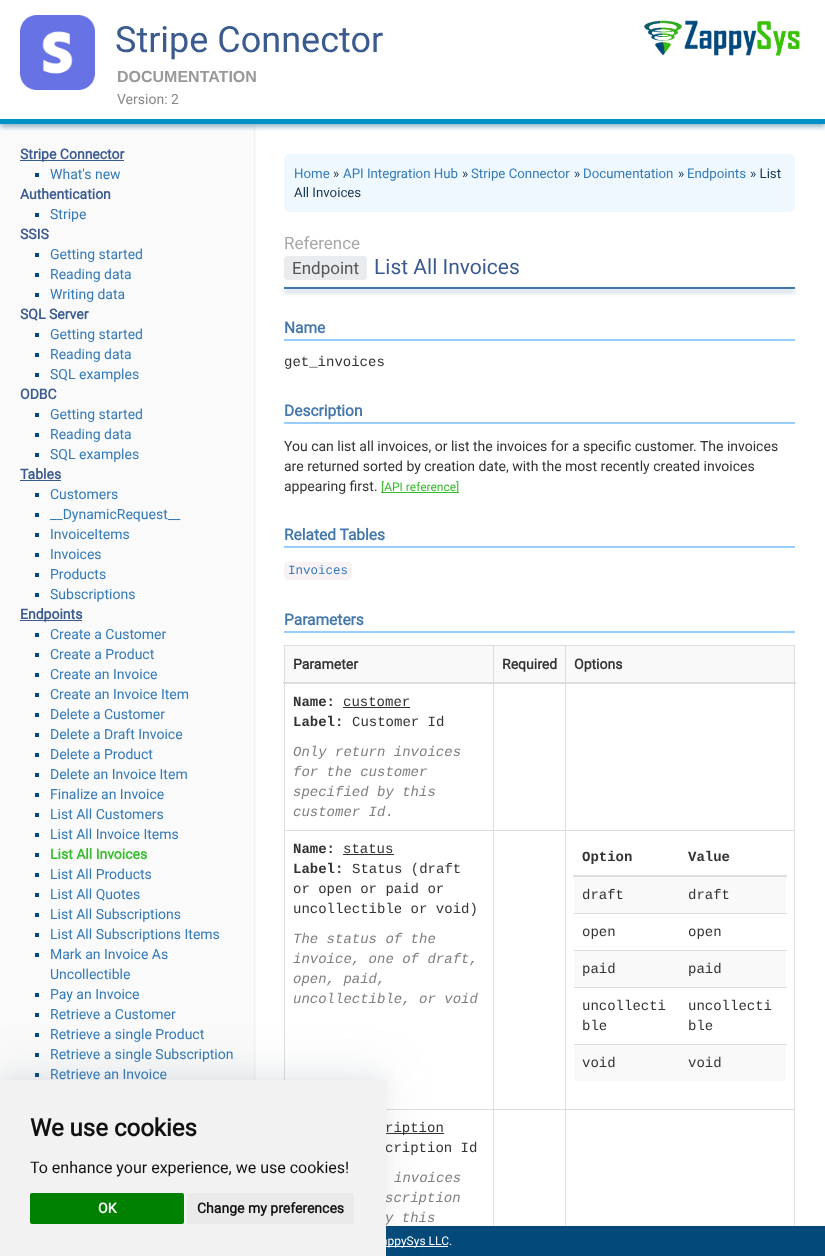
<!DOCTYPE html>
<meta charset="utf-8">
<style>body { margin: 0 } canvas { display: block }</style>
<canvas id="canvas" width="825" height="1256"></canvas>
<script type="module">
  const canvas = document.getElementById("canvas");
  const ctx = canvas.getContext("2d");
  ctx.miterLimit = 4;
  ctx.fontKerning = "normal";
  async function loadImage(src) {
    const img = new Image();
    img.src = src;
    await img.decode();
    return img;
  }

  ctx.fillStyle = "#ffffff";
  ctx.fillRect(0, 0, 825, 1256);
  ctx.fillStyle = "rgba(0, 0, 0, 0.15)";
  ctx.filter = "blur(1.5px)";
  ctx.beginPath();
  ctx.rect(0, 125, 254, 1106);
  ctx.fill();
  ctx.filter = "none";
  ctx.fillStyle = "#fafafa";
  ctx.fillRect(0, 124, 254, 956);
  ctx.save();
  ctx.beginPath();
  ctx.rect(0, 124, 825, 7);
  ctx.clip();
  ctx.fillStyle = "rgba(3, 74, 122, 0.4)";
  ctx.filter = "blur(2.5px)";
  ctx.beginPath();
  ctx.rect(0, 3, 825, 124);
  ctx.fill();
  ctx.filter = "none";
  ctx.restore();
  ctx.fillStyle = "#0091c6";
  ctx.fillRect(0, 119, 825, 5);
  ctx.drawImage(await loadImage("img1.png"), 20, 15, 75, 75);
  ctx.font = "36px Roboto";
  ctx.fillStyle = "#3b5b8f";
  ctx.fillText("Stripe Connector", 115, 52);
  ctx.font = "bold 16px Liberation Sans";
  ctx.fillStyle = "#999999";
  ctx.fillText("DOCUMENTATION", 117, 82);
  ctx.font = "14px Roboto";
  ctx.fillStyle = "#888888";
  ctx.fillText("Version: 2", 117, 104);
  ctx.drawImage(await loadImage("img2.png"), 644, 20, 156, 36);
  ctx.fillStyle = "#3b5b8f";
  ctx.fillRect(20, 160, 104, 1);
  ctx.font = "bold 14px Roboto";
  ctx.fillText("Stripe Connector", 20, 159);
  ctx.fillStyle = "#004a7f";
  ctx.fillRect(35, 173, 4, 4);
  ctx.font = "14px Roboto";
  ctx.fillStyle = "#337ab7";
  ctx.fillText("What's new", 50, 179);
  ctx.font = "bold 14px Roboto";
  ctx.fillStyle = "#3b5b8f";
  ctx.fillText("Authentication", 20, 199);
  ctx.fillStyle = "#004a7f";
  ctx.fillRect(35, 213, 4, 4);
  ctx.font = "14px Roboto";
  ctx.fillStyle = "#337ab7";
  ctx.fillText("Stripe", 50, 219);
  ctx.font = "bold 14px Roboto";
  ctx.fillStyle = "#3b5b8f";
  ctx.fillText("SSIS", 20, 239);
  ctx.fillStyle = "#004a7f";
  ctx.fillRect(35, 253, 4, 4);
  ctx.font = "14px Roboto";
  ctx.fillStyle = "#337ab7";
  ctx.fillText("Getting started", 50, 259);
  ctx.fillStyle = "#004a7f";
  ctx.fillRect(35, 273, 4, 4);
  ctx.fillStyle = "#337ab7";
  ctx.fillText("Reading data", 50, 279);
  ctx.fillStyle = "#004a7f";
  ctx.fillRect(35, 293, 4, 4);
  ctx.fillStyle = "#337ab7";
  ctx.fillText("Writing data", 50, 299);
  ctx.font = "bold 14px Roboto";
  ctx.fillStyle = "#3b5b8f";
  ctx.fillText("SQL Server", 20, 319);
  ctx.fillStyle = "#004a7f";
  ctx.fillRect(35, 333, 4, 4);
  ctx.font = "14px Roboto";
  ctx.fillStyle = "#337ab7";
  ctx.fillText("Getting started", 50, 339);
  ctx.fillStyle = "#004a7f";
  ctx.fillRect(35, 353, 4, 4);
  ctx.fillStyle = "#337ab7";
  ctx.fillText("Reading data", 50, 359);
  ctx.fillStyle = "#004a7f";
  ctx.fillRect(35, 373, 4, 4);
  ctx.fillStyle = "#337ab7";
  ctx.fillText("SQL examples", 50, 379);
  ctx.font = "bold 14px Roboto";
  ctx.fillStyle = "#3b5b8f";
  ctx.fillText("ODBC", 20, 399);
  ctx.fillStyle = "#004a7f";
  ctx.fillRect(35, 413, 4, 4);
  ctx.font = "14px Roboto";
  ctx.fillStyle = "#337ab7";
  ctx.fillText("Getting started", 50, 419);
  ctx.fillStyle = "#004a7f";
  ctx.fillRect(35, 433, 4, 4);
  ctx.fillStyle = "#337ab7";
  ctx.fillText("Reading data", 50, 439);
  ctx.fillStyle = "#004a7f";
  ctx.fillRect(35, 453, 4, 4);
  ctx.fillStyle = "#337ab7";
  ctx.fillText("SQL examples", 50, 459);
  ctx.font = "bold 14px Roboto";
  ctx.fillStyle = "#3b5b8f";
  ctx.fillText("Tables", 20, 479);
  ctx.fillRect(20, 480, 41, 1);
  ctx.fillStyle = "#004a7f";
  ctx.fillRect(35, 493, 4, 4);
  ctx.font = "14px Roboto";
  ctx.fillStyle = "#337ab7";
  ctx.fillText("Customers", 50, 499);
  ctx.fillStyle = "#004a7f";
  ctx.fillRect(35, 513, 4, 4);
  ctx.fillStyle = "#337ab7";
  ctx.fillText("__DynamicRequest__", 50, 519);
  ctx.fillStyle = "#004a7f";
  ctx.fillRect(35, 533, 4, 4);
  ctx.fillStyle = "#337ab7";
  ctx.fillText("InvoiceItems", 50, 539);
  ctx.fillStyle = "#004a7f";
  ctx.fillRect(35, 553, 4, 4);
  ctx.fillStyle = "#337ab7";
  ctx.fillText("Invoices", 50, 559);
  ctx.fillStyle = "#004a7f";
  ctx.fillRect(35, 573, 4, 4);
  ctx.fillStyle = "#337ab7";
  ctx.fillText("Products", 50, 579);
  ctx.fillStyle = "#004a7f";
  ctx.fillRect(35, 593, 4, 4);
  ctx.fillStyle = "#337ab7";
  ctx.fillText("Subscriptions", 50, 599);
  ctx.fillStyle = "#3b5b8f";
  ctx.fillRect(20, 620, 62, 1);
  ctx.font = "bold 14px Roboto";
  ctx.fillText("Endpoints", 20, 619);
  ctx.fillStyle = "#004a7f";
  ctx.fillRect(35, 633, 4, 4);
  ctx.font = "14px Roboto";
  ctx.fillStyle = "#337ab7";
  ctx.fillText("Create a Customer", 50, 639);
  ctx.fillStyle = "#004a7f";
  ctx.fillRect(35, 653, 4, 4);
  ctx.fillStyle = "#337ab7";
  ctx.fillText("Create a Product", 50, 659);
  ctx.fillStyle = "#004a7f";
  ctx.fillRect(35, 673, 4, 4);
  ctx.fillStyle = "#337ab7";
  ctx.fillText("Create an Invoice", 50, 679);
  ctx.fillStyle = "#004a7f";
  ctx.fillRect(35, 693, 4, 4);
  ctx.fillStyle = "#337ab7";
  ctx.fillText("Create an Invoice Item", 50, 699);
  ctx.fillStyle = "#004a7f";
  ctx.fillRect(35, 713, 4, 4);
  ctx.fillStyle = "#337ab7";
  ctx.fillText("Delete a Customer", 50, 719);
  ctx.fillStyle = "#004a7f";
  ctx.fillRect(35, 733, 4, 4);
  ctx.fillStyle = "#337ab7";
  ctx.fillText("Delete a Draft Invoice", 50, 739);
  ctx.fillStyle = "#004a7f";
  ctx.fillRect(35, 753, 4, 4);
  ctx.fillStyle = "#337ab7";
  ctx.fillText("Delete a Product", 50, 759);
  ctx.fillStyle = "#004a7f";
  ctx.fillRect(35, 773, 4, 4);
  ctx.fillStyle = "#337ab7";
  ctx.fillText("Delete an Invoice Item", 50, 779);
  ctx.fillStyle = "#004a7f";
  ctx.fillRect(35, 793, 4, 4);
  ctx.fillStyle = "#337ab7";
  ctx.fillText("Finalize an Invoice", 50, 799);
  ctx.fillStyle = "#004a7f";
  ctx.fillRect(35, 813, 4, 4);
  ctx.fillStyle = "#337ab7";
  ctx.fillText("List All Customers", 50, 819);
  ctx.fillStyle = "#004a7f";
  ctx.fillRect(35, 833, 4, 4);
  ctx.fillStyle = "#337ab7";
  ctx.fillText("List All Invoice Items", 50, 839);
  ctx.fillStyle = "#004a7f";
  ctx.fillRect(35, 853, 4, 4);
  ctx.font = "bold 14px Roboto";
  ctx.fillStyle = "#36be2a";
  ctx.fillText("List All Invoices", 50, 859);
  ctx.fillStyle = "#004a7f";
  ctx.fillRect(35, 873, 4, 4);
  ctx.font = "14px Roboto";
  ctx.fillStyle = "#337ab7";
  ctx.fillText("List All Products", 50, 879);
  ctx.fillStyle = "#004a7f";
  ctx.fillRect(35, 893, 4, 4);
  ctx.fillStyle = "#337ab7";
  ctx.fillText("List All Quotes", 50, 899);
  ctx.fillStyle = "#004a7f";
  ctx.fillRect(35, 913, 4, 4);
  ctx.fillStyle = "#337ab7";
  ctx.fillText("List All Subscriptions", 50, 919);
  ctx.fillStyle = "#004a7f";
  ctx.fillRect(35, 933, 4, 4);
  ctx.fillStyle = "#337ab7";
  ctx.fillText("List All Subscriptions Items", 50, 939);
  ctx.fillStyle = "#004a7f";
  ctx.fillRect(35, 953, 4, 4);
  ctx.fillStyle = "#337ab7";
  ctx.fillText("Mark an Invoice As", 50, 959);
  ctx.fillText("Uncollectible", 50, 979);
  ctx.fillStyle = "#004a7f";
  ctx.fillRect(35, 993, 4, 4);
  ctx.fillStyle = "#337ab7";
  ctx.fillText("Pay an Invoice", 50, 999);
  ctx.fillStyle = "#004a7f";
  ctx.fillRect(35, 1013, 4, 4);
  ctx.fillStyle = "#337ab7";
  ctx.fillText("Retrieve a Customer", 50, 1019);
  ctx.fillStyle = "#004a7f";
  ctx.fillRect(35, 1033, 4, 4);
  ctx.fillStyle = "#337ab7";
  ctx.fillText("Retrieve a single Product", 50, 1039);
  ctx.fillStyle = "#004a7f";
  ctx.fillRect(35, 1053, 4, 4);
  ctx.fillStyle = "#337ab7";
  ctx.fillText("Retrieve a single Subscription", 50, 1059);
  ctx.fillStyle = "#004a7f";
  ctx.fillRect(35, 1073, 4, 4);
  ctx.fillStyle = "#337ab7";
  ctx.fillText("Retrieve an Invoice", 50, 1079);
  ctx.fillStyle = "#f0f8ff";
  ctx.beginPath();
  ctx.roundRect(284, 154, 511, 58, 5);
  ctx.fill();
  ctx.font = "13.25px Roboto";
  ctx.fillStyle = "#337ab7";
  ctx.fillText("Home", 294, 178);
  ctx.fillStyle = "#163550";
  ctx.fillText("»", 333, 178);
  ctx.fillStyle = "#337ab7";
  ctx.fillText("API Integration Hub", 343, 178);
  ctx.fillStyle = "#163550";
  ctx.fillText("»", 462, 178);
  ctx.fillStyle = "#337ab7";
  ctx.fillText("Stripe Connector", 471, 178);
  ctx.fillStyle = "#163550";
  ctx.fillText("»", 574, 178);
  ctx.fillStyle = "#337ab7";
  ctx.fillText("Documentation", 583, 178);
  ctx.fillStyle = "#163550";
  ctx.fillText("»", 678, 178);
  ctx.fillStyle = "#337ab7";
  ctx.fillText("Endpoints", 687, 178);
  ctx.fillStyle = "#163550";
  ctx.fillText("» List", 750, 178);
  ctx.fillText("All Invoices", 294, 197);
  ctx.font = "17px Roboto";
  ctx.fillStyle = "#a9a9a9";
  ctx.fillText("Reference", 284, 249);
  ctx.fillStyle = "#e9ecef";
  ctx.beginPath();
  ctx.roundRect(284, 256, 83, 24, 4);
  ctx.fill();
  ctx.fillStyle = "#555555";
  ctx.fillText("Endpoint", 292, 274);
  ctx.font = "21px Roboto";
  ctx.fillStyle = "#3b5b8f";
  ctx.fillText("List All Invoices", 374, 274);
  ctx.fillStyle = "rgba(3, 74, 122, 0.4)";
  ctx.filter = "blur(2.5px)";
  ctx.beginPath();
  ctx.rect(284, 290, 511, 2);
  ctx.fill();
  ctx.filter = "none";
  ctx.fillStyle = "#4477aa";
  ctx.fillRect(284, 287, 511, 2);
  ctx.fillStyle = "#99ccff";
  ctx.fillRect(284, 339, 511, 2);
  ctx.font = "bold 15.5px Roboto";
  ctx.fillStyle = "#4477aa";
  ctx.fillText("Name", 284, 333);
  ctx.font = "14px Liberation Mono";
  ctx.fillStyle = "#333333";
  ctx.fillText("get_invoices", 284, 366);
  ctx.fillStyle = "#99ccff";
  ctx.fillRect(284, 422, 511, 2);
  ctx.font = "bold 15.5px Roboto";
  ctx.fillStyle = "#4477aa";
  ctx.fillText("Description", 284, 416);
  ctx.font = "14px Roboto";
  ctx.fillStyle = "#333333";
  ctx.fillText("You can list all invoices, or list the invoices for a specific customer. The invoices", 284, 451);
  ctx.fillText("are returned sorted by creation date, with the most recently created invoices", 284, 471);
  ctx.fillText("appearing first.", 284, 491);
  ctx.fillStyle = "#36be2a";
  ctx.fillRect(381, 492, 78, 1);
  ctx.font = "12px Roboto";
  ctx.fillText("[API reference]", 381, 491);
  ctx.fillStyle = "#99ccff";
  ctx.fillRect(284, 546, 511, 2);
  ctx.font = "bold 15.5px Roboto";
  ctx.fillStyle = "#4477aa";
  ctx.fillText("Related Tables", 284, 540);
  ctx.fillStyle = "#f9f2f4";
  ctx.beginPath();
  ctx.roundRect(284, 562, 68, 18, 4);
  ctx.fill();
  ctx.font = "12.5px Liberation Mono";
  ctx.fillStyle = "#337ab7";
  ctx.fillText("Invoices", 288, 574);
  ctx.fillStyle = "#99ccff";
  ctx.fillRect(284, 631, 511, 2);
  ctx.font = "bold 15.5px Roboto";
  ctx.fillStyle = "#4477aa";
  ctx.fillText("Parameters", 284, 625);
  ctx.fillStyle = "#dddddd";
  ctx.fillRect(284, 645, 511, 1);
  ctx.fillRect(794, 645, 1, 585);
  ctx.fillRect(284, 645, 1, 435);
  ctx.fillStyle = "#f9f9f9";
  ctx.fillRect(285, 646, 509, 36);
  ctx.font = "bold 14px Roboto";
  ctx.fillStyle = "#333333";
  ctx.fillText("Parameter", 293, 669);
  ctx.fillText("Required", 502, 669);
  ctx.fillStyle = "#dddddd";
  ctx.fillRect(565, 830, 230, 1);
  ctx.fillRect(565, 1109, 230, 1);
  ctx.fillRect(565, 1109, 1, 121);
  ctx.fillRect(493, 1109, 73, 1);
  ctx.fillRect(565, 830, 1, 280);
  ctx.fillRect(493, 830, 73, 1);
  ctx.fillRect(493, 1109, 1, 121);
  ctx.fillRect(386, 1109, 108, 1);
  ctx.fillRect(493, 830, 1, 280);
  ctx.fillRect(284, 830, 210, 1);
  ctx.fillRect(493, 645, 1, 186);
  ctx.fillRect(565, 645, 1, 186);
  ctx.fillRect(283, 682, 513, 2);
  ctx.fillStyle = "#333333";
  ctx.fillText("Options", 574, 669);
  ctx.font = "bold 14px Liberation Mono";
  ctx.fillText("Name:", 293, 706);
  ctx.font = "14px Liberation Mono";
  ctx.fillText("customer", 343, 706);
  ctx.fillRect(343, 707, 67, 1);
  ctx.font = "bold 14px Liberation Mono";
  ctx.fillText("Label:", 293, 726);
  ctx.font = "14px Liberation Mono";
  ctx.fillText("Customer Id", 352, 726);
  ctx.font = "italic 14px Liberation Mono";
  ctx.fillStyle = "#7f7f7f";
  ctx.fillText("Only return invoices", 293, 756);
  ctx.fillText("for the customer", 293, 776);
  ctx.fillText("specified by this", 293, 796);
  ctx.fillText("customer Id.", 293, 816);
  ctx.font = "bold 14px Liberation Mono";
  ctx.fillStyle = "#333333";
  ctx.fillText("Name:", 293, 853);
  ctx.font = "14px Liberation Mono";
  ctx.fillText("status", 343, 853);
  ctx.fillRect(343, 854, 51, 1);
  ctx.font = "bold 14px Liberation Mono";
  ctx.fillText("Label:", 293, 873);
  ctx.font = "14px Liberation Mono";
  ctx.fillText("Status (draft", 352, 873);
  ctx.fillText("or open or paid or", 293, 893);
  ctx.fillText("uncollectible or void)", 293, 913);
  ctx.font = "italic 14px Liberation Mono";
  ctx.fillStyle = "#7f7f7f";
  ctx.fillText("The status of the", 293, 943);
  ctx.fillText("invoice, one of draft,", 293, 963);
  ctx.fillText("open, paid,", 293, 983);
  ctx.fillText("uncollectible, or void", 293, 1003);
  ctx.font = "bold 14px Liberation Mono";
  ctx.fillStyle = "#333333";
  ctx.fillText("Option", 582, 861);
  ctx.fillStyle = "#dddddd";
  ctx.fillRect(573, 875, 214, 2);
  ctx.fillStyle = "#333333";
  ctx.fillText("Value", 688, 861);
  ctx.fillStyle = "#f9f9f9";
  ctx.fillRect(574, 877, 212, 36);
  ctx.font = "14px Liberation Mono";
  ctx.fillStyle = "#333333";
  ctx.fillText("draft", 582, 899);
  ctx.fillText("draft", 688, 899);
  ctx.fillText("open", 582, 936);
  ctx.fillStyle = "#dddddd";
  ctx.fillRect(574, 913, 213, 1);
  ctx.fillStyle = "#333333";
  ctx.fillText("open", 688, 936);
  ctx.fillStyle = "#f9f9f9";
  ctx.fillRect(574, 951, 212, 36);
  ctx.fillStyle = "#333333";
  ctx.fillText("paid", 582, 973);
  ctx.fillStyle = "#dddddd";
  ctx.fillRect(574, 950, 213, 1);
  ctx.fillStyle = "#333333";
  ctx.fillText("paid", 688, 973);
  ctx.fillText("uncollecti", 582, 1010);
  ctx.fillText("ble", 582, 1030);
  ctx.fillStyle = "#dddddd";
  ctx.fillRect(574, 987, 213, 1);
  ctx.fillStyle = "#333333";
  ctx.fillText("uncollecti", 688, 1010);
  ctx.fillText("ble", 688, 1030);
  ctx.fillStyle = "#f9f9f9";
  ctx.fillRect(574, 1045, 212, 36);
  ctx.fillStyle = "#333333";
  ctx.fillText("void", 582, 1067);
  ctx.fillStyle = "#dddddd";
  ctx.fillRect(574, 1044, 213, 1);
  ctx.fillStyle = "#333333";
  ctx.fillText("void", 688, 1067);
  ctx.fillRect(386, 1133, 58, 1);
  ctx.fillText("ription", 385, 1132);
  ctx.fillText("cription Id", 385, 1152);
  ctx.font = "italic 14px Liberation Mono";
  ctx.fillStyle = "#7f7f7f";
  ctx.fillText("invoices", 394, 1182);
  ctx.fillText("scription", 385, 1202);
  ctx.fillText("y this", 385, 1222);
  ctx.fillStyle = "#034a7a";
  ctx.fillRect(386, 1226, 439, 30);
  ctx.fillStyle = "#ffffff";
  ctx.fillRect(386, 1246, 62, 1);
  ctx.fillStyle = "rgba(100, 116, 139, 0.07)";
  ctx.filter = "blur(8px)";
  ctx.beginPath();
  ctx.rect(0, 1075, 386, 176);
  ctx.fill();
  ctx.filter = "none";
  ctx.fillStyle = "rgba(100, 116, 139, 0.1)";
  ctx.filter = "blur(22.5px)";
  ctx.beginPath();
  ctx.rect(0, 1067, 386, 176);
  ctx.fill();
  ctx.filter = "none";
  ctx.font = "12px Roboto";
  ctx.fillStyle = "#ffffff";
  ctx.fillText("appySys LLC.", 381, 1245);
  ctx.fillStyle = "#f2f2f2";
  ctx.fillRect(0, 1080, 386, 176);
  ctx.font = "bold 24px Roboto";
  ctx.fillStyle = "#111111";
  ctx.fillText("We use cookies", 30, 1136);
  ctx.font = "16px Roboto";
  ctx.fillText("To enhance your experience, we use cookies!", 30, 1173);
  ctx.fillStyle = "#008000";
  ctx.beginPath();
  ctx.roundRect(30, 1193, 154, 31, 2);
  ctx.fill();
  ctx.font = "bold 14px Roboto";
  ctx.fillStyle = "#ffffff";
  ctx.fillText("OK", 98, 1213);
  ctx.fillStyle = "#eaeaea";
  ctx.beginPath();
  ctx.roundRect(187, 1193, 167, 31, 2);
  ctx.fill();
  ctx.fillStyle = "#111111";
  ctx.fillText("Change my preferences", 197, 1213);
</script>
